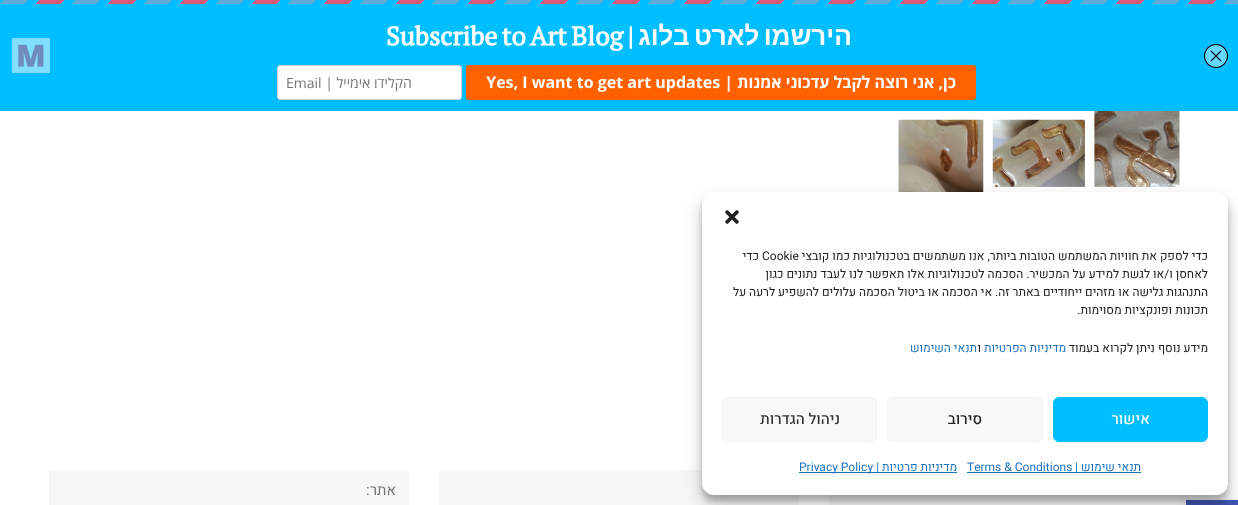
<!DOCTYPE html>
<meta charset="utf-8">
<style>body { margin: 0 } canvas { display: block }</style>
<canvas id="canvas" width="1238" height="505"></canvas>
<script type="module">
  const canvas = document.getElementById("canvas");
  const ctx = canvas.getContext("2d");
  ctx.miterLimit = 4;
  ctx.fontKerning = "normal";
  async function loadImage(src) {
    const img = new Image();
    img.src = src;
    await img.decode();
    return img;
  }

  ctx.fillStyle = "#ffffff";
  ctx.fillRect(0, 0, 1238, 505);
  ctx.drawImage(await loadImage("img1.png"), 0, 0, 1238, 111);
  ctx.fillStyle = "#f7f7f7";
  ctx.fillRect(829, 495, 360, 10);
  ctx.fillStyle = "rgba(0, 0, 0, 0.1)";
  ctx.filter = "blur(5px)";
  ctx.beginPath();
  ctx.rect(1186, 500, 52, 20);
  ctx.fill();
  ctx.filter = "none";
  ctx.fillStyle = "#4054b2";
  ctx.fillRect(1186, 500, 52, 5);
  ctx.drawImage(await loadImage("img3.png"), 898, 111, 282, 81);
  ctx.fillStyle = "#f7f7f7";
  ctx.fillRect(439, 470, 360, 35);
  ctx.fillStyle = "rgba(0, 0, 0, 0.23)";
  ctx.filter = "blur(3px)";
  ctx.beginPath();
  ctx.roundRect(702, 198, 526, 303, 12);
  ctx.fill();
  ctx.filter = "none";
  ctx.fillStyle = "rgba(0, 0, 0, 0.19)";
  ctx.filter = "blur(10px)";
  ctx.beginPath();
  ctx.roundRect(702, 202, 526, 303, 12);
  ctx.fill();
  ctx.filter = "none";
  ctx.fillStyle = "#ffffff";
  ctx.beginPath();
  ctx.roundRect(702, 192, 526, 303, 12);
  ctx.fill();
  ctx.drawImage(await loadImage("img2.png"), 725, 210, 14, 14);
  ctx.direction = "rtl";
  ctx.font = "12px Heebo";
  ctx.fillStyle = "#222222";
  ctx.fillText("כדי לספק את חוויות המשתמש הטובות ביותר, אנו משתמשים בטכנולוגיות כמו קובצי", 1208, 260);
  ctx.direction = "ltr";
  ctx.fillText("Cookie", 762, 260);
  ctx.direction = "rtl";
  ctx.fillText("כדי", 759, 260);
  ctx.fillText("לאחסן ו/או לגשת למידע על המכשיר. הסכמה לטכנולוגיות אלו תאפשר לנו לעבד נתונים כגון", 1208, 278);
  ctx.fillText("התנהגות גלישה או מזהים ייחודיים באתר זה. אי הסכמה או ביטול הסכמה עלולים להשפיע לרעה על", 1208, 296);
  ctx.fillText("תכונות ופונקציות מסוימות.", 1208, 314);
  ctx.fillText("מידע נוסף ניתן לקרוא בעמוד", 1208, 352);
  ctx.fillStyle = "#1e73be";
  ctx.fillText("מדיניות הפרטיות", 1066, 352);
  ctx.fillStyle = "#222222";
  ctx.fillText("ו", 981, 352);
  ctx.fillStyle = "#1e73be";
  ctx.fillText("תנאי השימוש", 977, 352);
  ctx.fillStyle = "#00bfff";
  ctx.beginPath();
  ctx.roundRect(1053.5, 397.5, 154, 44, 5.5);
  ctx.fill();
  ctx.strokeStyle = "#00bfff";
  ctx.stroke();
  ctx.font = "500 15px Heebo";
  ctx.fillStyle = "#ffffff";
  ctx.fillText("אישור", 1150, 424);
  ctx.fillStyle = "#f9f9f9";
  ctx.beginPath();
  ctx.roundRect(887.5, 397.5, 155, 44, 5.5);
  ctx.fill();
  ctx.strokeStyle = "#f2f2f2";
  ctx.stroke();
  ctx.fillStyle = "#222222";
  ctx.fillText("סירוב", 982, 424);
  ctx.fillStyle = "#f9f9f9";
  ctx.beginPath();
  ctx.roundRect(722.5, 397.5, 154, 44, 5.5);
  ctx.fill();
  ctx.stroke();
  ctx.fillStyle = "#333333";
  ctx.fillText("ניהול הגדרות", 840, 424);
  ctx.fillStyle = "#1e73be";
  ctx.fillRect(967, 472, 174, 1);
  ctx.font = "12px Heebo";
  ctx.fillText("תנאי שימוש |", 1141, 471);
  ctx.direction = "ltr";
  ctx.fillText("Terms & Conditions", 967, 471);
  ctx.fillRect(799, 472, 158, 1);
  ctx.direction = "rtl";
  ctx.fillText("מדיניות פרטיות |", 957, 471);
  ctx.direction = "ltr";
  ctx.fillText("Privacy Policy", 799, 471);
  ctx.fillStyle = "#f7f7f7";
  ctx.fillRect(49, 470, 360, 35);
  ctx.direction = "rtl";
  ctx.font = "15px Heebo";
  ctx.fillStyle = "#757575";
  ctx.fillText("אתר:", 396, 495);
</script>
